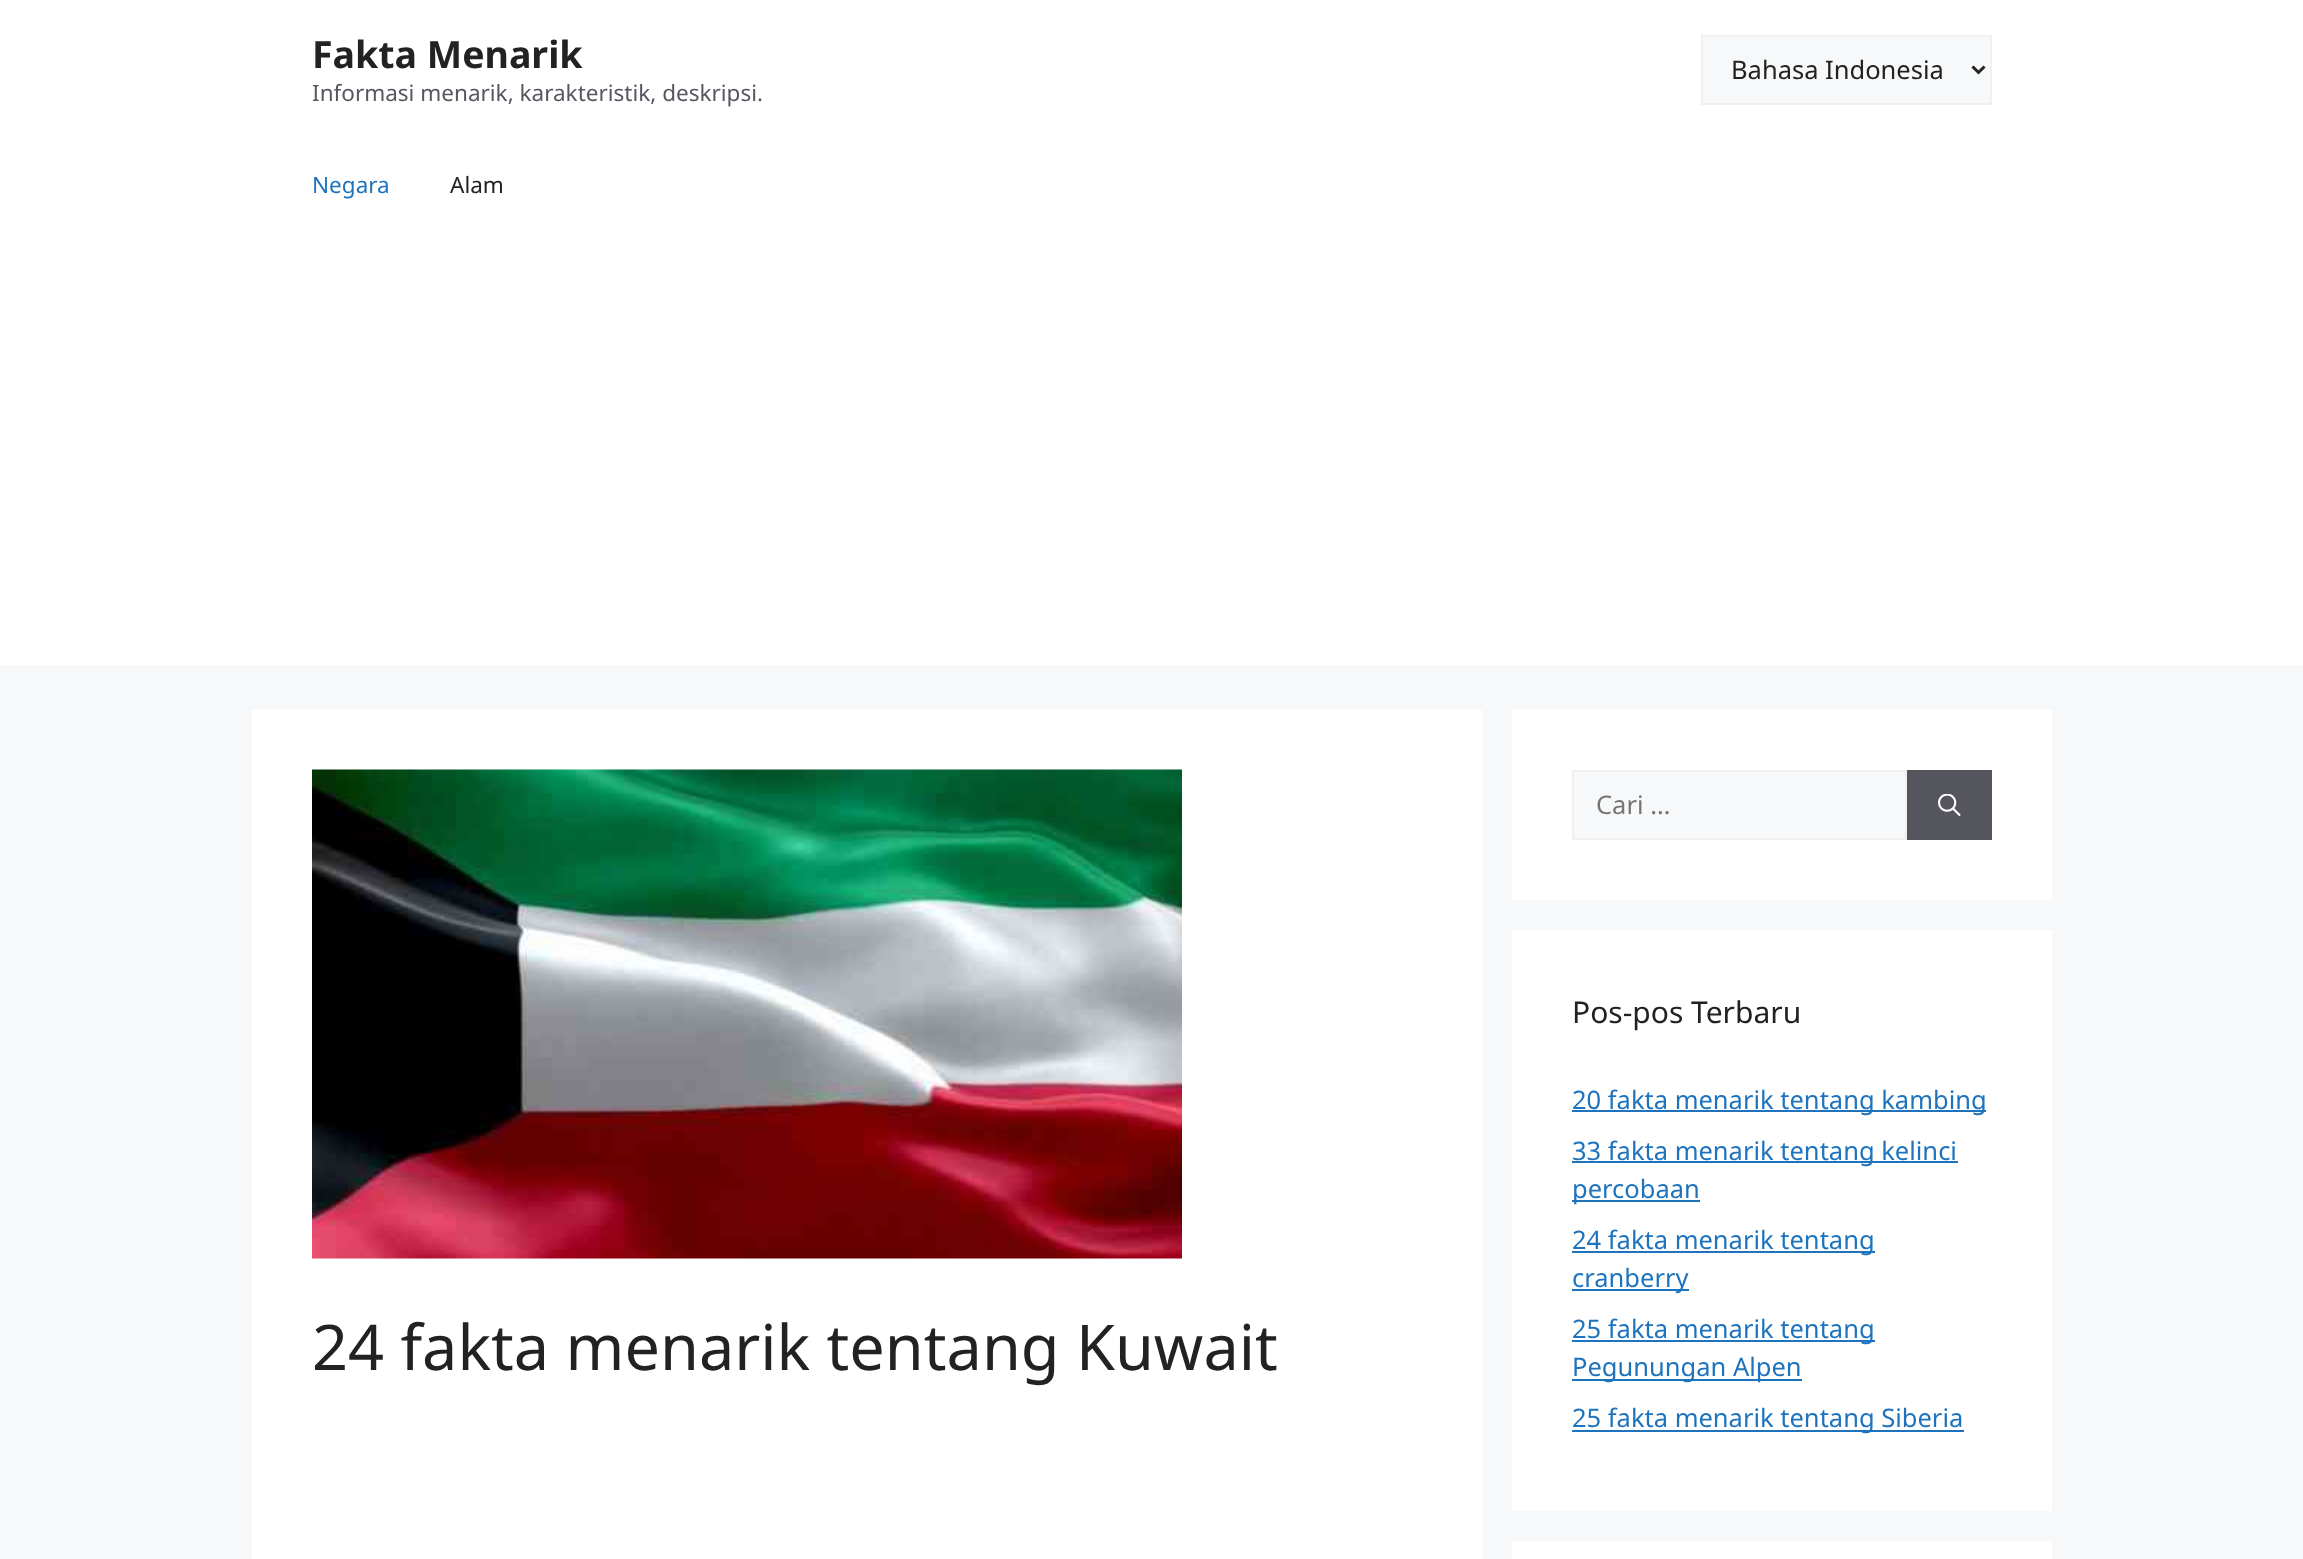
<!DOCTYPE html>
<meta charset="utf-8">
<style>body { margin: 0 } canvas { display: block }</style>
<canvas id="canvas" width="2303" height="1559"></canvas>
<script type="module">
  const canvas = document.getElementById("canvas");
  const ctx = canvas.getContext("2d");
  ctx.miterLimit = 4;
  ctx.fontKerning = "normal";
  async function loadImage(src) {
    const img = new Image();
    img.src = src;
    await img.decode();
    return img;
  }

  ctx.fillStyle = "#f7f8f9";
  ctx.fillRect(0, 0, 2303, 1559);
  ctx.fillStyle = "#ffffff";
  ctx.fillRect(0, 0, 2303, 665);
  ctx.font = "bold 37.5px Noto Sans";
  ctx.fillStyle = "#222222";
  ctx.fillText("Fakta Menarik", 312, 68);
  ctx.font = "22.5px Noto Sans";
  ctx.fillStyle = "#575760";
  ctx.fillText("Informasi menarik, karakteristik, deskripsi.", 312, 101);
  ctx.fillStyle = "#f7f8f9";
  ctx.beginPath();
  ctx.rect(1702, 36, 289, 68);
  ctx.fill();
  ctx.strokeStyle = "#f0f0f0";
  ctx.lineWidth = 2;
  ctx.stroke();
  ctx.beginPath();
  ctx.moveTo(1972.5, 66.5);
  ctx.lineTo(1978.5, 72.5);
  ctx.lineTo(1984.5, 66.5);
  ctx.strokeStyle = "#222222";
  ctx.lineWidth = 3;
  ctx.stroke();
  ctx.font = "25.5px Noto Sans";
  ctx.fillStyle = "#222222";
  ctx.fillText("Bahasa Indonesia", 1731, 79);
  ctx.font = "22.5px Noto Sans";
  ctx.fillStyle = "#1e73be";
  ctx.fillText("Negara", 312, 193);
  ctx.fillStyle = "#222222";
  ctx.fillText("Alam", 450, 193);
  ctx.fillStyle = "#ffffff";
  ctx.fillRect(252, 710, 1230, 849);
  ctx.drawImage(await loadImage("img1.png"), 312, 769, 870, 490);
  ctx.font = "63px Noto Sans";
  ctx.fillStyle = "#222222";
  ctx.fillText("24 fakta menarik tentang Kuwait", 312, 1370);
  ctx.fillStyle = "#ffffff";
  ctx.fillRect(1512, 710, 540, 190);
  ctx.fillStyle = "#f7f8f9";
  ctx.beginPath();
  ctx.rect(1573, 771, 333, 68);
  ctx.fill();
  ctx.strokeStyle = "#f0f0f0";
  ctx.lineWidth = 2;
  ctx.stroke();
  ctx.font = "25.5px Noto Sans";
  ctx.fillStyle = "#757575";
  ctx.fillText("Cari …", 1596, 814);
  ctx.fillStyle = "#55555e";
  ctx.fillRect(1907, 770, 85, 70);
  ctx.drawImage(await loadImage("img2.png"), 1938, 794, 23, 22);
  ctx.fillStyle = "#ffffff";
  ctx.fillRect(1512, 930, 540, 581);
  ctx.font = "30px Noto Sans";
  ctx.fillStyle = "#222222";
  ctx.fillText("Pos-pos Terbaru", 1572, 1023);
  ctx.fillStyle = "#1e73be";
  ctx.fillRect(1572, 1110, 414, 2);
  ctx.font = "25.5px Noto Sans";
  ctx.fillText("20 fakta menarik tentang kambing", 1572, 1109);
  ctx.fillRect(1572, 1161, 386, 2);
  ctx.fillText("33 fakta menarik tentang kelinci", 1572, 1160);
  ctx.fillRect(1572, 1200, 128, 2);
  ctx.fillText("percobaan", 1572, 1198);
  ctx.fillRect(1572, 1251, 303, 2);
  ctx.fillText("24 fakta menarik tentang", 1572, 1249);
  ctx.fillRect(1572, 1289, 117, 2);
  ctx.fillText("cranberry", 1572, 1287);
  ctx.fillRect(1572, 1340, 303, 2);
  ctx.fillText("25 fakta menarik tentang", 1572, 1338);
  ctx.fillRect(1572, 1379, 230, 2);
  ctx.fillText("Pegunungan Alpen", 1572, 1376);
  ctx.fillRect(1572, 1430, 392, 2);
  ctx.fillText("25 fakta menarik tentang Siberia", 1572, 1427);
  ctx.fillStyle = "#ffffff";
  ctx.fillRect(1512, 1541, 540, 18);
</script>
